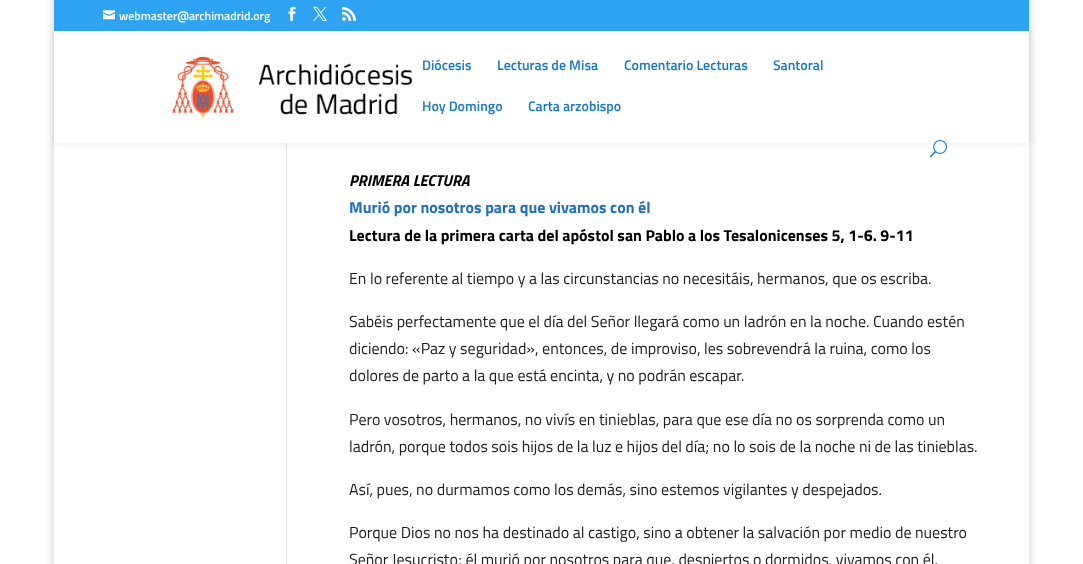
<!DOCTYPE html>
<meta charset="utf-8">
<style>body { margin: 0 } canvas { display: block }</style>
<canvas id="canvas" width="1083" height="564"></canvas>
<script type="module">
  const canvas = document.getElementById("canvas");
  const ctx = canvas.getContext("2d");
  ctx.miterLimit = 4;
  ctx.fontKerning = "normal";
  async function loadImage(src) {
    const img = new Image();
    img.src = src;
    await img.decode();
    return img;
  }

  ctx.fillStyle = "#ffffff";
  ctx.fillRect(0, 0, 1083, 564);
  ctx.save();
  ctx.beginPath();
  ctx.moveTo(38, 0);
  ctx.lineTo(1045, 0);
  ctx.lineTo(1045, 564);
  ctx.lineTo(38, 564);
  ctx.closePath();
  ctx.moveTo(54, -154);
  ctx.lineTo(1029, -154);
  ctx.lineTo(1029, 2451);
  ctx.lineTo(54, 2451);
  ctx.closePath();
  ctx.clip("evenodd");
  ctx.fillStyle = "rgba(0, 0, 0, 0.2)";
  ctx.filter = "blur(5px)";
  ctx.beginPath();
  ctx.rect(54, -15, 975, 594);
  ctx.fill();
  ctx.filter = "none";
  ctx.restore();
  ctx.fillStyle = "#e2e2e2";
  ctx.fillRect(286, 143, 1, 421);
  ctx.fillStyle = "rgba(0, 0, 0, 0.1)";
  ctx.filter = "blur(3.5px)";
  ctx.beginPath();
  ctx.rect(54, 31, 975, 112);
  ctx.fill();
  ctx.filter = "none";
  ctx.fillStyle = "#2ea3f2";
  ctx.fillRect(54, 0, 975, 31);
  ctx.drawImage(await loadImage("img1.png"), 103, 10, 12, 10);
  ctx.font = "600 12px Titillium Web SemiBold";
  ctx.fillStyle = "#ffffff";
  ctx.fillText("webmaster@archimadrid.org", 119, 20);
  ctx.drawImage(await loadImage("img2.png"), 288, 6, 8, 15);
  ctx.drawImage(await loadImage("img3.png"), 313, 6, 14, 15);
  ctx.drawImage(await loadImage("img4.png"), 342, 6, 14, 15);
  ctx.fillRect(54, 31, 975, 112);
  ctx.drawImage(await loadImage("img5.png"), 172, 56, 240, 62);
  ctx.font = "600 14px Titillium Web SemiBold";
  ctx.fillStyle = "#1b7ac7";
  ctx.fillText("Diócesis", 422, 70);
  ctx.fillText("Lecturas de Misa", 497, 70);
  ctx.fillText("Comentario Lecturas", 624, 70);
  ctx.fillText("Santoral", 773, 70);
  ctx.fillText("Hoy Domingo", 422, 111);
  ctx.fillText("Carta arzobispo", 528, 111);
  ctx.drawImage(await loadImage("img6.png"), 930, 140, 17, 18);
  ctx.font = "italic bold 16px Titillium Web";
  ctx.fillStyle = "#000000";
  ctx.fillText("PRIMERA LECTURA", 349, 186);
  ctx.font = "bold 16px Titillium Web";
  ctx.fillStyle = "#2570bb";
  ctx.fillText("Murió por nosotros para que vivamos con él", 349, 213);
  ctx.fillStyle = "#000000";
  ctx.fillText("Lectura de la primera carta del apóstol san Pablo a los Tesalonicenses 5, 1-6. 9-11", 349, 241);
  ctx.font = "16px Titillium Web";
  ctx.fillStyle = "#212121";
  ctx.fillText("En lo referente al tiempo y a las circunstancias no necesitáis, hermanos, que os escriba.", 349, 284);
  ctx.fillText("Sabéis perfectamente que el día del Señor llegará como un ladrón en la noche. Cuando estén", 349, 327);
  ctx.fillText("diciendo: «Paz y seguridad», entonces, de improviso, les sobrevendrá la ruina, como los", 349, 354);
  ctx.fillText("dolores de parto a la que está encinta, y no podrán escapar.", 349, 381);
  ctx.fillText("Pero vosotros, hermanos, no vivís en tinieblas, para que ese día no os sorprenda como un", 349, 425);
  ctx.fillText("ladrón, porque todos sois hijos de la luz e hijos del día; no lo sois de la noche ni de las tinieblas.", 349, 452);
  ctx.fillText("Así, pues, no durmamos como los demás, sino estemos vigilantes y despejados.", 349, 495);
  ctx.fillText("Porque Dios no nos ha destinado al castigo, sino a obtener la salvación por medio de nuestro", 349, 538);
  ctx.fillText("Señor Jesucristo; él murió por nosotros para que, despiertos o dormidos, vivamos con él.", 349, 565);
</script>
